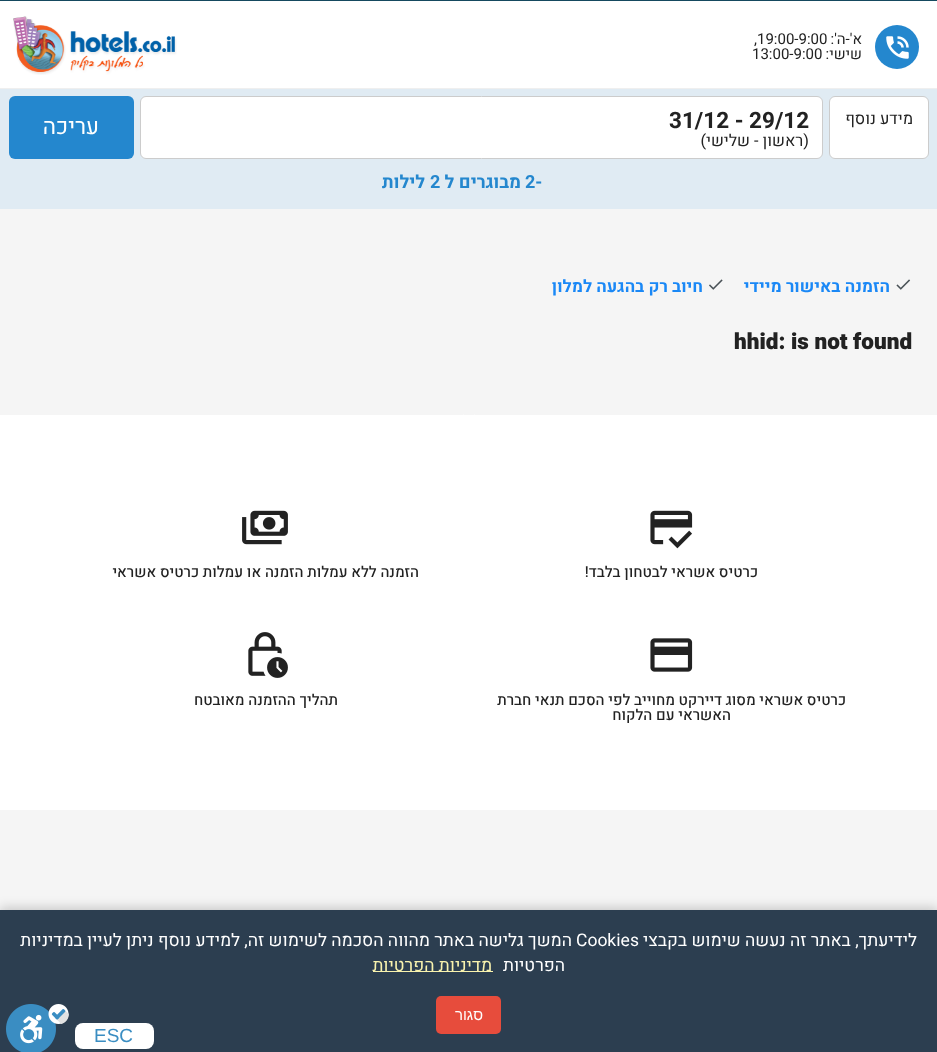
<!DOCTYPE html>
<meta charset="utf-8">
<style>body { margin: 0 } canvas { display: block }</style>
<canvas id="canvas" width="937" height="1052"></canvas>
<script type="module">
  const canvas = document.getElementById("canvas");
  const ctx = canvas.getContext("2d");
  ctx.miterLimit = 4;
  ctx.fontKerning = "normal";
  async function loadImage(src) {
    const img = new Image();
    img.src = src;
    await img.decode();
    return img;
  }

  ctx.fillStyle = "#f5f5f5";
  ctx.fillRect(0, 0, 937, 1052);
  ctx.fillStyle = "#ffffff";
  ctx.fillRect(0, 1, 937, 87);
  ctx.fillStyle = "#efefef";
  ctx.fillRect(0, 88, 937, 1);
  ctx.fillStyle = "#2487ce";
  ctx.beginPath();
  ctx.arc(897, 47, 22, 0, Math.PI * 2);
  ctx.fill();
  ctx.drawImage(await loadImage("img1.png"), 886, 36, 23, 23);
  ctx.direction = "rtl";
  ctx.font = "15px Heebo";
  ctx.fillStyle = "#222222";
  ctx.fillText("א'-ה':", 862, 44);
  ctx.direction = "ltr";
  ctx.fillText(",19:00-9:00", 754, 44);
  ctx.direction = "rtl";
  ctx.fillText("שישי:", 862, 59);
  ctx.direction = "ltr";
  ctx.fillText("13:00-9:00", 752, 59);
  ctx.drawImage(await loadImage("img2.png"), 13, 16, 164, 59);
  ctx.fillStyle = "#e0ebf3";
  ctx.fillRect(0, 89, 937, 120);
  ctx.fillStyle = "#ffffff";
  ctx.beginPath();
  ctx.roundRect(829.5, 96.5, 99, 62, 5.5);
  ctx.fill();
  ctx.strokeStyle = "#cccccc";
  ctx.stroke();
  ctx.direction = "rtl";
  ctx.font = "16.25px Heebo";
  ctx.fillStyle = "#222222";
  ctx.fillText("מידע נוסף", 913, 124);
  ctx.fillStyle = "#ffffff";
  ctx.beginPath();
  ctx.roundRect(140.5, 96.5, 682, 62, 5.5);
  ctx.fill();
  ctx.stroke();
  ctx.direction = "ltr";
  ctx.font = "bold 22.5px Heebo";
  ctx.fillStyle = "#222222";
  ctx.fillText("31/12 - 29/12", 669, 128);
  ctx.direction = "rtl";
  ctx.font = "16.25px Heebo";
  ctx.fillText("(ראשון - שלישי)", 809, 146);
  ctx.fillStyle = "#2487ce";
  ctx.beginPath();
  ctx.roundRect(9, 96, 125, 63, 6);
  ctx.fill();
  ctx.font = "22.5px Heebo";
  ctx.fillStyle = "#ffffff";
  ctx.fillText("עריכה", 99, 134);
  ctx.direction = "ltr";
  ctx.font = "bold 18px Heebo";
  ctx.fillStyle = "#2487ce";
  ctx.fillText("2-", 525, 188);
  ctx.direction = "rtl";
  ctx.fillText("מבוגרים ל", 521, 188);
  ctx.direction = "ltr";
  ctx.fillText("2", 430, 188);
  ctx.direction = "rtl";
  ctx.fillText("לילות", 425, 188);
  ctx.drawImage(await loadImage("img3.png"), 896, 279, 15, 11);
  ctx.font = "bold 16.9px Heebo";
  ctx.fillStyle = "#1a88f6";
  ctx.fillText("הזמנה באישור מיידי", 890, 292);
  ctx.drawImage(await loadImage("img4.png"), 709, 279, 14, 11);
  ctx.fillText("חיוב רק בהגעה למלון", 703, 292);
  ctx.direction = "ltr";
  ctx.font = "900 22.5px Heebo";
  ctx.fillStyle = "#222222";
  ctx.fillText("hhid: is not found", 734, 349);
  ctx.fillStyle = "#ffffff";
  ctx.fillRect(0, 415, 937, 395);
  ctx.drawImage(await loadImage("img5.png"), 650, 510, 43, 39);
  ctx.direction = "rtl";
  ctx.font = "500 15px Heebo";
  ctx.fillStyle = "#222222";
  ctx.fillText("כרטיס אשראי לבטחון בלבד!", 758, 577);
  ctx.drawImage(await loadImage("img6.png"), 242, 510, 46, 35);
  ctx.fillText("הזמנה ללא עמלות הזמנה או עמלות כרטיס אשראי", 419, 577);
  ctx.drawImage(await loadImage("img7.png"), 650, 638, 43, 34);
  ctx.fillText("כרטיס אשראי מסוג דיירקט מחוייב לפי הסכם תנאי חברת", 846, 705);
  ctx.fillText("האשראי עם הלקוח", 731, 720);
  ctx.drawImage(await loadImage("img8.png"), 248, 632, 40, 46);
  ctx.fillText("תהליך ההזמנה מאובטח", 338, 705);
  ctx.fillStyle = "rgba(0, 0, 0, 0.2)";
  ctx.filter = "blur(6px)";
  ctx.beginPath();
  ctx.rect(0, 908, 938, 142);
  ctx.fill();
  ctx.filter = "none";
  ctx.fillStyle = "#2c3e50";
  ctx.fillRect(0, 910, 937, 142);
  ctx.font = "17.5px Heebo";
  ctx.fillStyle = "#ffffff";
  ctx.fillText("לידיעתך, באתר זה נעשה שימוש בקבצי", 917, 946);
  ctx.direction = "ltr";
  ctx.fillText("Cookies", 576, 946);
  ctx.direction = "rtl";
  ctx.fillText("המשך גלישה באתר מהווה הסכמה לשימוש זה, למידע נוסף ניתן לעיין במדיניות", 572, 946);
  ctx.fillText("הפרטיות", 565, 971);
  ctx.fillStyle = "#f9f3ae";
  ctx.fillRect(373, 971, 120, 1);
  ctx.fillText("מדיניות הפרטיות", 492, 971);
  ctx.fillStyle = "#e74c3c";
  ctx.beginPath();
  ctx.roundRect(436, 996, 65, 38, 5);
  ctx.fill();
  ctx.font = "15px Liberation Sans";
  ctx.fillStyle = "#ffffff";
  ctx.fillText("סגור", 483, 1020);
  ctx.fillStyle = "#15495f";
  ctx.fillRect(0, 0, 937, 1);
  ctx.save();
  ctx.beginPath();
  ctx.roundRect(444, 414, 50, 50, 25);
  ctx.clip();
  ctx.fillStyle = "#ffffff";
  ctx.fillRect(444, 414, 20, 50);
  ctx.fillRect(474, 414, 20, 50);
  ctx.restore();
  ctx.fillStyle = "#ffffff";
  ctx.beginPath();
  ctx.roundRect(75, 1023, 79, 26, 8);
  ctx.fill();
  ctx.direction = "ltr";
  ctx.font = "19px Liberation Sans";
  ctx.fillStyle = "#3a8dc2";
  ctx.fillText("ESC", 94, 1042);
  ctx.drawImage(await loadImage("img9.png"), 6, 1004, 63, 48);
</script>
